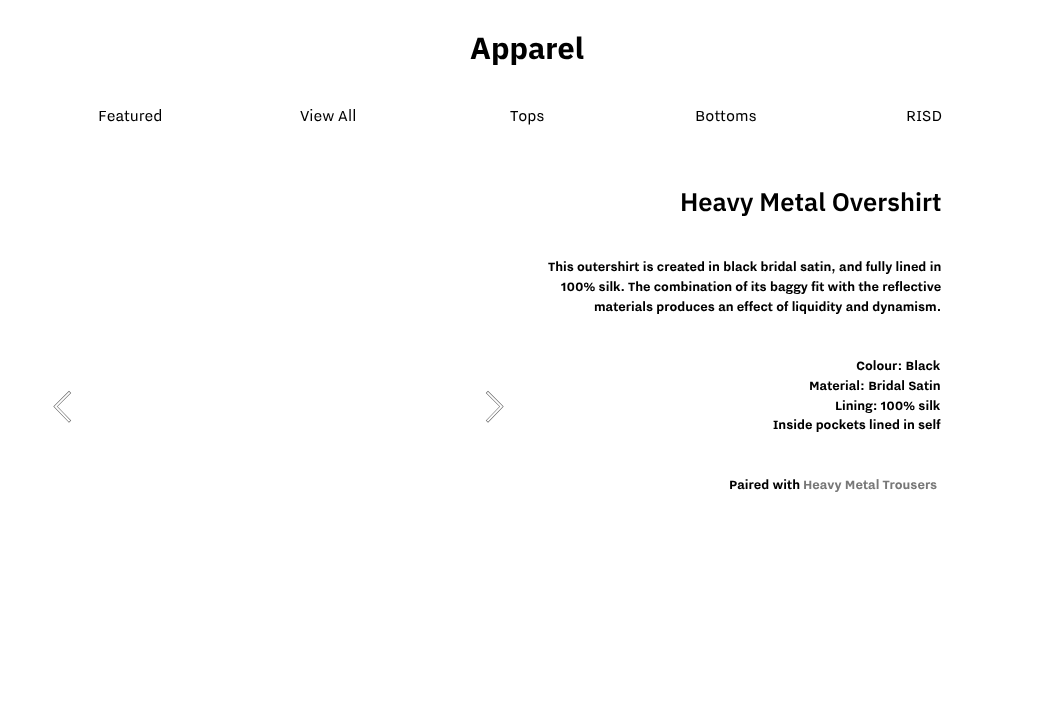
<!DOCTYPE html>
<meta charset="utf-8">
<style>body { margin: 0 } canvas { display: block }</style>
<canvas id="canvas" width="1053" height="706"></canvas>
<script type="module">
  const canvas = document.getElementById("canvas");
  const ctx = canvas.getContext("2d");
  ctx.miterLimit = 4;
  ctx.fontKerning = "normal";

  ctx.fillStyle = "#ffffff";
  ctx.fillRect(0, 0, 1053, 706);
  ctx.font = "bold 30.5px IBM Plex Sans";
  ctx.fillStyle = "#000000";
  ctx.fillText("Apparel", 470, 59);
  ctx.font = "18.5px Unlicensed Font";
  ctx.fillText("Featured", 98, 121);
  ctx.fillText("View All", 300, 121);
  ctx.fillText("Tops", 510, 121);
  ctx.fillText("Bottoms", 695, 121);
  ctx.fillText("RISD", 906, 121);
  ctx.beginPath();
  ctx.moveTo(69, 420.5);
  ctx.lineTo(55.5, 406.5);
  ctx.lineTo(69, 393);
  ctx.strokeStyle = "#666666";
  ctx.lineWidth = 3.1;
  ctx.lineCap = "square";
  ctx.stroke();
  ctx.beginPath();
  ctx.moveTo(69, 420.5);
  ctx.lineTo(55.5, 406.5);
  ctx.lineTo(69, 393);
  ctx.strokeStyle = "#ffffff";
  ctx.lineWidth = 1.9;
  ctx.stroke();
  ctx.beginPath();
  ctx.moveTo(488, 420.5);
  ctx.lineTo(501.5, 406.5);
  ctx.lineTo(488, 393);
  ctx.strokeStyle = "#666666";
  ctx.lineWidth = 3.1;
  ctx.stroke();
  ctx.beginPath();
  ctx.moveTo(488, 420.5);
  ctx.lineTo(501.5, 406.5);
  ctx.lineTo(488, 393);
  ctx.strokeStyle = "#ffffff";
  ctx.lineWidth = 1.9;
  ctx.stroke();
  ctx.font = "600 25.5px IBM Plex Sans";
  ctx.fillText("Heavy Metal Overshirt", 680, 211);
  ctx.font = "bold 15.25px Unlicensed Font";
  ctx.fillText("This outershirt is created in black bridal satin, and fully lined in", 548, 271);
  ctx.fillText("100% silk. The combination of its baggy fit with the reflective", 561, 291);
  ctx.fillText("materials produces an effect of liquidity and dynamism.", 594, 311);
  ctx.fillText("Colour: Black", 856, 370);
  ctx.fillText("Material: Bridal Satin", 809, 390);
  ctx.fillText("Lining: 100% silk", 835, 410);
  ctx.fillText("Inside pockets lined in self", 773, 429);
  ctx.fillText("Paired with", 729, 489);
  ctx.fillStyle = "#787878";
  ctx.fillText("Heavy Metal Trousers", 803, 489);
</script>
